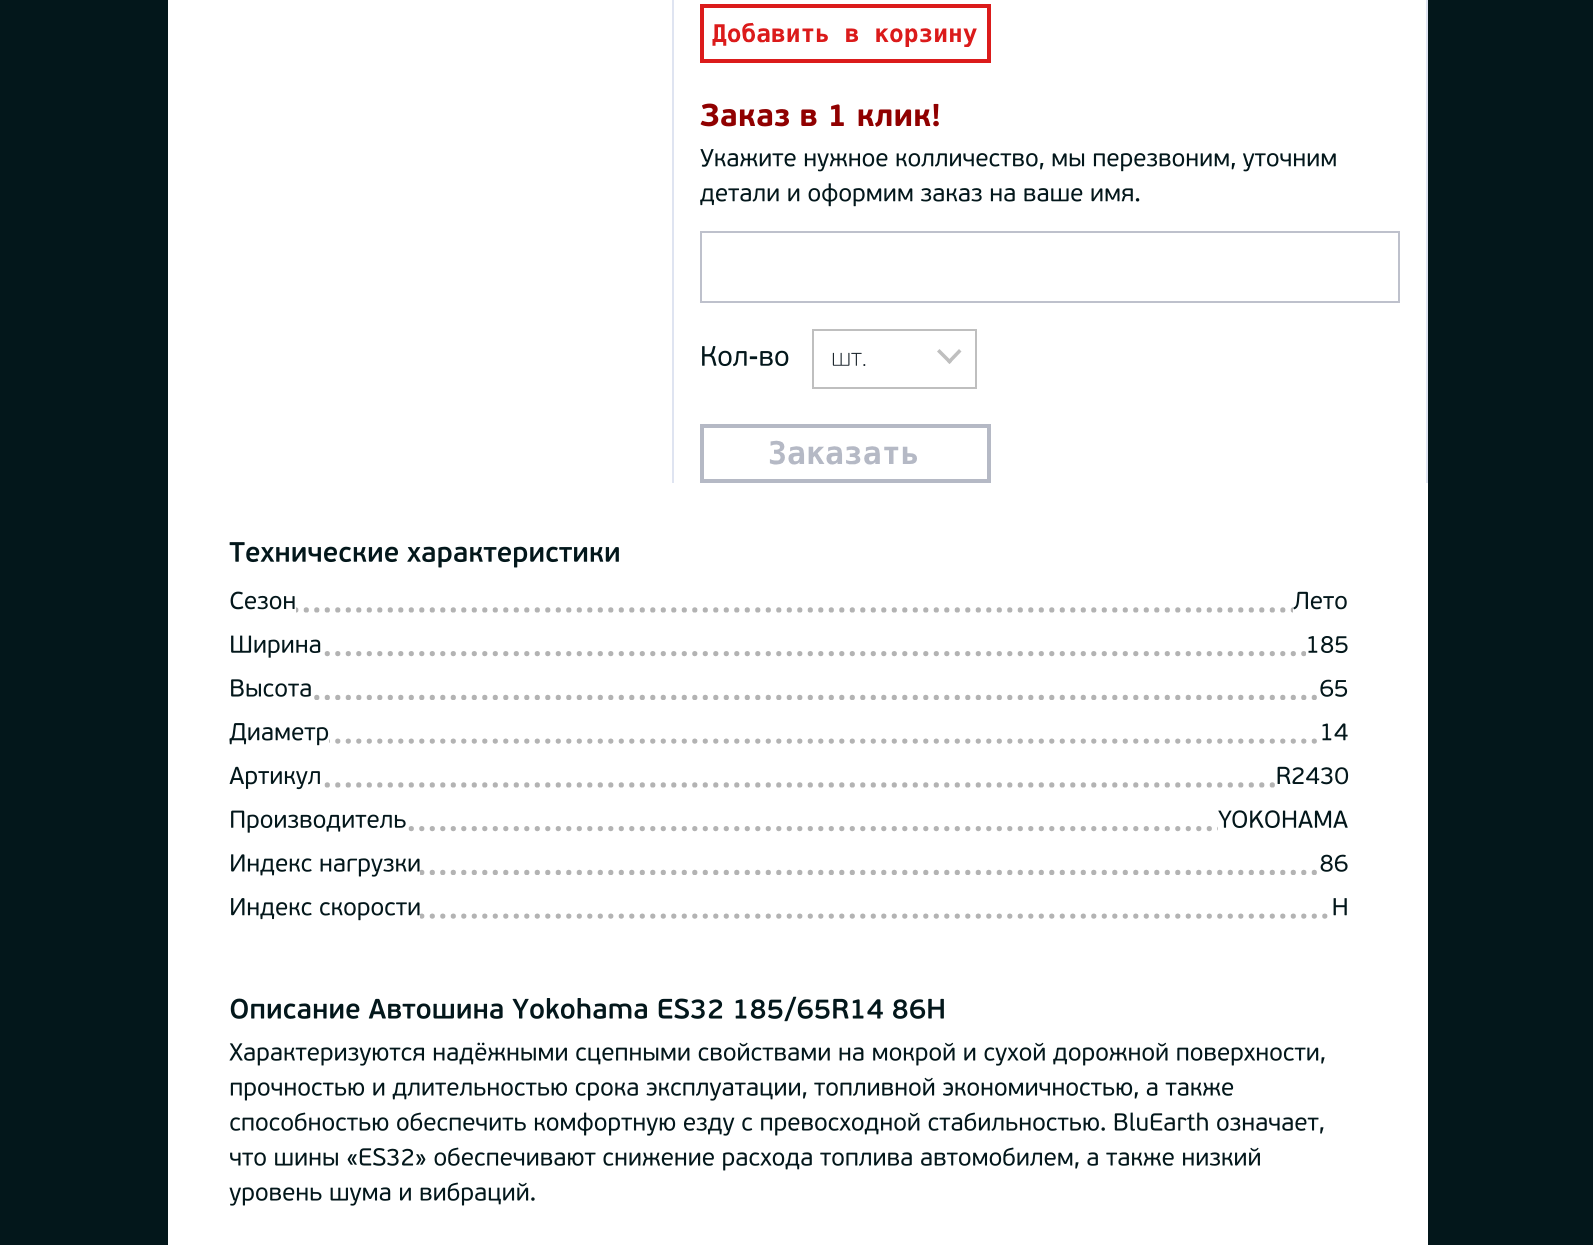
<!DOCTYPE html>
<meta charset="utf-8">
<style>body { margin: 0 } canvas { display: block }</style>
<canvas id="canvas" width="1593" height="1245"></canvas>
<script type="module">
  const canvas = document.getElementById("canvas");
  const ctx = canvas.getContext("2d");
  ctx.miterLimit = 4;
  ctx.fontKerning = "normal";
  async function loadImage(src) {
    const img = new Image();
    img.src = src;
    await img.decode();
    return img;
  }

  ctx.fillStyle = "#03171b";
  ctx.fillRect(0, 0, 1593, 1245);
  ctx.fillStyle = "#ffffff";
  ctx.fillRect(168, 0, 1260, 1245);
  ctx.fillStyle = "#dfe4f1";
  ctx.fillRect(1426, 0, 2, 483);
  ctx.fillRect(672, 0, 2, 483);
  ctx.strokeStyle = "#db1b1b";
  ctx.lineWidth = 4;
  ctx.strokeRect(702, 6, 287, 55);
  ctx.font = "bold 24.5px DejaVu Sans Mono";
  ctx.fillStyle = "#db1b1b";
  ctx.fillText("Добавить в корзину", 712, 42);
  ctx.drawImage(await loadImage("img1.png"), 700, 103, 239, 24);
  ctx.drawImage(await loadImage("img2.png"), 700, 149, 636, 23);
  ctx.drawImage(await loadImage("img3.png"), 700, 183, 440, 24);
  ctx.strokeStyle = "#bec1cc";
  ctx.lineWidth = 2;
  ctx.strokeRect(701, 232, 698, 70);
  ctx.drawImage(await loadImage("img4.png"), 702, 346, 87, 21);
  ctx.strokeStyle = "#bfbfbf";
  ctx.strokeRect(813, 330, 163, 58);
  ctx.drawImage(await loadImage("img5.png"), 832, 352, 34, 14);
  ctx.fillStyle = "#bfbfbf";
  ctx.beginPath();
  ctx.moveTo(949.5, 364);
  ctx.lineTo(937, 351.5);
  ctx.lineTo(939.5, 349);
  ctx.lineTo(952, 361.5);
  ctx.closePath();
  ctx.fill();
  ctx.beginPath();
  ctx.moveTo(949.5, 364);
  ctx.lineTo(947, 361.5);
  ctx.lineTo(959, 349);
  ctx.lineTo(961.5, 351.5);
  ctx.closePath();
  ctx.fill();
  ctx.strokeStyle = "#b5b9c5";
  ctx.lineWidth = 4;
  ctx.strokeRect(702, 426, 287, 55);
  ctx.font = "bold 31.5px DejaVu Sans Mono";
  ctx.fillStyle = "#b5b9c5";
  ctx.fillText("Заказать", 768, 464);
  ctx.drawImage(await loadImage("img6.png"), 229, 542, 390, 26);
  ctx.beginPath();
  ctx.moveTo(232.8, 609.9);
  ctx.lineTo(1346.1, 609.9);
  ctx.strokeStyle = "#b3b3b3";
  ctx.lineWidth = 5.2;
  ctx.lineCap = "round";
  ctx.setLineDash([0, 10.5]);
  ctx.stroke();
  ctx.fillStyle = "#ffffff";
  ctx.fillRect(230, 607, 66, 6);
  ctx.drawImage(await loadImage("img7.png"), 230, 591, 65, 19);
  ctx.fillRect(1293, 607, 56, 6);
  ctx.drawImage(await loadImage("img8.png"), 1293, 591, 54, 19);
  ctx.beginPath();
  ctx.moveTo(232.8, 653.6);
  ctx.lineTo(1346.1, 653.6);
  ctx.stroke();
  ctx.fillRect(230, 651, 90, 6);
  ctx.drawImage(await loadImage("img9.png"), 231, 635, 90, 23);
  ctx.fillRect(1306, 651, 43, 6);
  ctx.drawImage(await loadImage("img10.png"), 1308, 636, 40, 18);
  ctx.beginPath();
  ctx.moveTo(232.8, 697.4);
  ctx.lineTo(1346.1, 697.4);
  ctx.stroke();
  ctx.fillRect(230, 694, 79, 6);
  ctx.drawImage(await loadImage("img11.png"), 231, 679, 80, 18);
  ctx.fillRect(1322, 694, 27, 6);
  ctx.drawImage(await loadImage("img12.png"), 1320, 679, 28, 18);
  ctx.beginPath();
  ctx.moveTo(232.8, 741.1);
  ctx.lineTo(1346.1, 741.1);
  ctx.stroke();
  ctx.fillRect(230, 738, 99, 6);
  ctx.drawImage(await loadImage("img13.png"), 229, 723, 100, 23);
  ctx.fillRect(1322, 738, 27, 6);
  ctx.drawImage(await loadImage("img14.png"), 1322, 723, 26, 18);
  ctx.beginPath();
  ctx.moveTo(232.8, 784.9);
  ctx.lineTo(1346.1, 784.9);
  ctx.stroke();
  ctx.fillRect(230, 782, 90, 6);
  ctx.drawImage(await loadImage("img15.png"), 229, 766, 91, 24);
  ctx.fillRect(1280, 782, 69, 6);
  ctx.drawImage(await loadImage("img16.png"), 1277, 766, 72, 19);
  ctx.beginPath();
  ctx.moveTo(232.8, 828.6);
  ctx.lineTo(1346.1, 828.6);
  ctx.stroke();
  ctx.fillRect(230, 826, 174, 6);
  ctx.drawImage(await loadImage("img17.png"), 231, 810, 175, 23);
  ctx.fillRect(1218, 826, 131, 6);
  ctx.drawImage(await loadImage("img18.png"), 1218, 810, 130, 18);
  ctx.beginPath();
  ctx.moveTo(232.8, 872.4);
  ctx.lineTo(1346.1, 872.4);
  ctx.stroke();
  ctx.fillRect(230, 869, 190, 6);
  ctx.drawImage(await loadImage("img19.png"), 231, 854, 189, 23);
  ctx.fillRect(1322, 869, 27, 6);
  ctx.drawImage(await loadImage("img20.png"), 1320, 854, 28, 18);
  ctx.beginPath();
  ctx.moveTo(232.8, 916.1);
  ctx.lineTo(1346.1, 916.1);
  ctx.stroke();
  ctx.fillRect(230, 913, 190, 6);
  ctx.drawImage(await loadImage("img21.png"), 231, 898, 189, 23);
  ctx.fillRect(1332, 913, 17, 6);
  ctx.drawImage(await loadImage("img22.png"), 1333, 898, 14, 18);
  ctx.drawImage(await loadImage("img23.png"), 230, 996, 714, 26);
  ctx.drawImage(await loadImage("img24.png"), 229, 1042, 1096, 24);
  ctx.drawImage(await loadImage("img25.png"), 230, 1077, 1004, 24);
  ctx.drawImage(await loadImage("img26.png"), 230, 1112, 1094, 24);
  ctx.drawImage(await loadImage("img27.png"), 230, 1147, 1030, 24);
  ctx.drawImage(await loadImage("img28.png"), 229, 1182, 306, 24);
</script>
